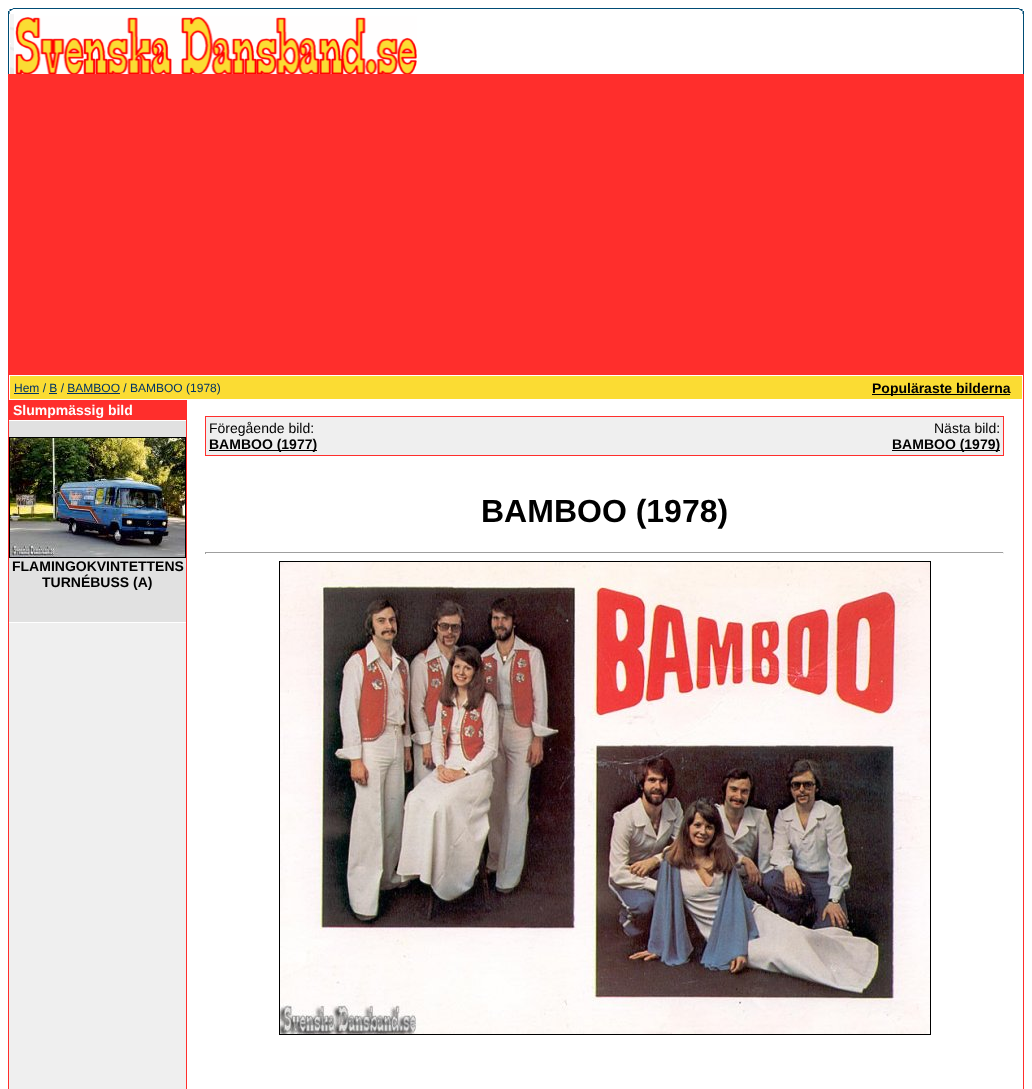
<!DOCTYPE html>
<meta charset="utf-8">
<style>body { margin: 0 } canvas { display: block }</style>
<canvas id="canvas" width="1032" height="1089"></canvas>
<script type="module">
  const canvas = document.getElementById("canvas");
  const ctx = canvas.getContext("2d");
  ctx.miterLimit = 4;
  ctx.fontKerning = "normal";
  async function loadImage(src) {
    const img = new Image();
    img.src = src;
    await img.decode();
    return img;
  }

  ctx.fillStyle = "#ffffff";
  ctx.fillRect(0, 0, 1032, 1089);
  ctx.drawImage(await loadImage("img1.png"), 8, 8, 1016, 6);
  ctx.drawImage(await loadImage("img2.png"), 8, 14, 6, 60);
  ctx.drawImage(await loadImage("img3.png"), 15, 16, 402, 58);
  ctx.fillStyle = "#004c75";
  ctx.fillRect(1023, 14, 1, 60);
  ctx.fillStyle = "#ff2e2c";
  ctx.fillRect(8, 74, 1016, 1015);
  ctx.fillStyle = "#ffffff";
  ctx.fillRect(9, 375, 1014, 714);
  ctx.fillStyle = "#fbdc33";
  ctx.fillRect(10, 376, 1012, 23);
  ctx.fillStyle = "#003366";
  ctx.fillRect(14, 393, 25, 1);
  ctx.font = "12px Liberation Sans";
  ctx.fillText("Hem / B / BAMBOO / BAMBOO (1978)", 14, 392);
  ctx.fillRect(49, 393, 8, 1);
  ctx.fillRect(67, 393, 53, 1);
  ctx.fillStyle = "#000000";
  ctx.fillRect(872, 394, 138, 1);
  ctx.font = "bold 14px Liberation Sans";
  ctx.fillText("Populäraste bilderna", 872, 393);
  ctx.fillStyle = "#efefef";
  ctx.fillRect(9, 623, 177, 466);
  ctx.fillStyle = "#ff2e2c";
  ctx.fillRect(9, 400, 177, 20);
  ctx.fillStyle = "#ffffff";
  ctx.fillText("Slumpmässig bild", 13, 415);
  ctx.fillStyle = "#e1e1e1";
  ctx.fillRect(9, 421, 177, 201);
  ctx.strokeStyle = "#000000";
  ctx.strokeRect(9.5, 437.5, 176, 120);
  ctx.drawImage(await loadImage("img4.png"), 10, 438, 175, 119);
  ctx.fillStyle = "#000000";
  ctx.fillText("FLAMINGOKVINTETTENS", 12, 571);
  ctx.fillText("TURNÉBUSS (A)", 42, 587);
  ctx.fillStyle = "#ff2e2c";
  ctx.fillRect(186, 400, 1, 689);
  ctx.fillRect(205, 416, 799, 40);
  ctx.fillStyle = "#efefef";
  ctx.fillRect(206, 417, 797, 38);
  ctx.font = "14px Liberation Sans";
  ctx.fillStyle = "#000000";
  ctx.fillText("Föregående bild:", 209, 433);
  ctx.fillRect(209, 450, 108, 1);
  ctx.font = "bold 14px Liberation Sans";
  ctx.fillText("BAMBOO (1977)", 209, 449);
  ctx.font = "14px Liberation Sans";
  ctx.fillText("Nästa bild:", 934, 433);
  ctx.fillRect(892, 450, 108, 1);
  ctx.font = "bold 14px Liberation Sans";
  ctx.fillText("BAMBOO (1979)", 892, 449);
  ctx.font = "bold 32px Liberation Sans";
  ctx.fillText("BAMBOO (1978)", 481, 522);
  ctx.fillStyle = "#9f9f9f";
  ctx.fillRect(205, 552, 799, 1);
  ctx.fillStyle = "#eeeeee";
  ctx.fillRect(1003, 552, 1, 2);
  ctx.fillStyle = "#9f9f9f";
  ctx.fillRect(205, 552, 1, 2);
  ctx.strokeRect(279.5, 561.5, 651, 473);
  ctx.drawImage(await loadImage("img5.png"), 280, 562, 650, 472);
</script>
